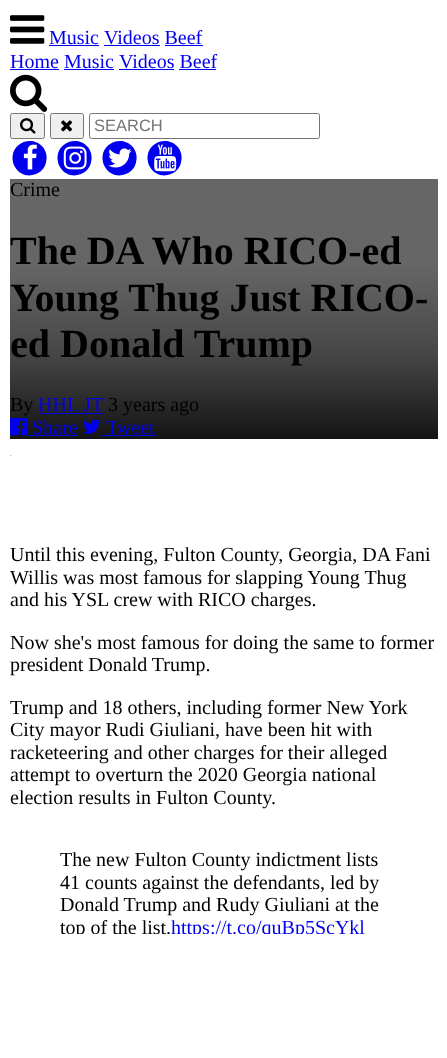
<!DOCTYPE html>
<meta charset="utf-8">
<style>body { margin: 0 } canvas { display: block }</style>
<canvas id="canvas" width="447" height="1058"></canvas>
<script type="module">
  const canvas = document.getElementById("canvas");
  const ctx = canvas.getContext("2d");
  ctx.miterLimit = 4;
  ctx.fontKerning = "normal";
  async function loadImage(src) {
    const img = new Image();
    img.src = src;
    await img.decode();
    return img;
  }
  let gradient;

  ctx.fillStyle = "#ffffff";
  ctx.fillRect(0, 0, 447, 1058);
  ctx.drawImage(await loadImage("img1.png"), 10, 15, 35, 29);
  ctx.font = "20px Liberation Serif";
  ctx.fillStyle = "#0000ee";
  ctx.fillText("Music", 49, 44);
  ctx.fillRect(49, 45, 50, 1);
  ctx.fillText("Videos Beef", 104, 44);
  ctx.fillRect(104, 45, 56, 1);
  ctx.fillRect(165, 45, 38, 1);
  ctx.fillText("Home Music", 10, 68);
  ctx.fillRect(10, 69, 49, 1);
  ctx.fillText("Videos Beef", 119, 68);
  ctx.fillRect(119, 69, 55, 1);
  ctx.fillRect(64, 69, 50, 1);
  ctx.fillRect(179, 69, 37, 1);
  ctx.drawImage(await loadImage("img2.png"), 10, 74, 38, 38);
  ctx.fillStyle = "#efefef";
  ctx.beginPath();
  ctx.roundRect(10.5, 113.5, 34, 25, 2);
  ctx.fill();
  ctx.strokeStyle = "#767676";
  ctx.stroke();
  ctx.drawImage(await loadImage("img3.png"), 20, 118, 16, 16);
  ctx.beginPath();
  ctx.roundRect(50.5, 113.5, 33, 25, 2);
  ctx.fill();
  ctx.stroke();
  ctx.drawImage(await loadImage("img4.png"), 61, 120, 11, 12);
  ctx.beginPath();
  ctx.roundRect(89.5, 113.5, 230, 25, 2);
  ctx.stroke();
  ctx.font = "16.5px Liberation Sans";
  ctx.fillStyle = "#757575";
  ctx.fillText("SEARCH", 94, 131);
  ctx.fillStyle = "#0000ee";
  ctx.beginPath();
  ctx.moveTo(44.5, 149.5);
  ctx.bezierCurveTo(46, 152.5, 47, 156, 46.5, 159.5);
  ctx.bezierCurveTo(45.5, 176, 23, 181.5, 15, 167);
  ctx.bezierCurveTo(13, 164, 12.5, 160.5, 12.5, 157);
  ctx.bezierCurveTo(13.5, 140.5, 36, 135, 44.5, 149.5);
  ctx.closePath();
  ctx.fill();
  ctx.drawImage(await loadImage("img5.png"), 23, 144, 14, 26);
  ctx.beginPath();
  ctx.moveTo(89.5, 149.5);
  ctx.bezierCurveTo(91, 152.5, 92, 156, 91.5, 159.5);
  ctx.bezierCurveTo(90.5, 176, 68, 181.5, 60, 167);
  ctx.bezierCurveTo(58, 164, 57.5, 160.5, 57.5, 157);
  ctx.bezierCurveTo(58.5, 140.5, 81, 135, 89.5, 149.5);
  ctx.closePath();
  ctx.fill();
  ctx.drawImage(await loadImage("img6.png"), 63, 146, 24, 24);
  ctx.beginPath();
  ctx.moveTo(134.5, 149.5);
  ctx.bezierCurveTo(136, 152.5, 137, 156, 136.5, 159.5);
  ctx.bezierCurveTo(135.5, 176, 113, 181.5, 105, 167);
  ctx.bezierCurveTo(103, 164, 102.5, 160.5, 102.5, 157);
  ctx.bezierCurveTo(103.5, 140.5, 126, 135, 134.5, 149.5);
  ctx.closePath();
  ctx.fill();
  ctx.drawImage(await loadImage("img7.png"), 108, 148, 24, 20);
  ctx.beginPath();
  ctx.moveTo(179.5, 149.5);
  ctx.bezierCurveTo(181, 152.5, 182, 156, 181.5, 159.5);
  ctx.bezierCurveTo(180.5, 176, 158, 181.5, 150, 167);
  ctx.bezierCurveTo(148, 164, 147.5, 160.5, 147.5, 157);
  ctx.bezierCurveTo(148.5, 140.5, 171, 135, 179.5, 149.5);
  ctx.closePath();
  ctx.fill();
  ctx.drawImage(await loadImage("img8.png"), 154, 144, 23, 28);
  gradient = ctx.createLinearGradient(224, 179, 224, 439);
  gradient.addColorStop(0, "#666666");
  gradient.addColorStop(0.33, "#666666");
  gradient.addColorStop(0.67, "#474747");
  gradient.addColorStop(1, "#141414");
  ctx.fillStyle = gradient;
  ctx.fillRect(10, 179, 428, 260);
  ctx.font = "20px Liberation Serif";
  ctx.fillStyle = "#000000";
  ctx.fillText("Crime", 10, 196);
  ctx.font = "bold 40px Liberation Serif";
  ctx.fillText("The DA Who RICO-ed", 10, 264);
  ctx.fillText("Young Thug Just RICO-", 10, 311);
  ctx.fillText("ed Donald Trump", 10, 357);
  ctx.font = "20px Liberation Serif";
  ctx.fillText("By", 10, 411);
  ctx.fillStyle = "#0000ee";
  ctx.fillText("HHL JT", 38, 411);
  ctx.fillRect(39, 413, 65, 1);
  ctx.fillStyle = "#000000";
  ctx.fillText("3 years ago", 108, 411);
  ctx.drawImage(await loadImage("img9.png"), 10, 418, 18, 18);
  ctx.fillStyle = "#0000ee";
  ctx.fillText("Share", 32, 434);
  ctx.fillRect(28, 435, 50, 1);
  ctx.drawImage(await loadImage("img10.png"), 83, 419, 18, 15);
  ctx.fillText("Tweet", 106, 434);
  ctx.fillRect(101, 435, 54, 1);
  ctx.drawImage(await loadImage("img11.png"), 10, 455, 2, 2);
  ctx.fillStyle = "#000000";
  ctx.fillText("Until this evening, Fulton County, Georgia, DA Fani", 10, 561);
  ctx.fillText("Willis was most famous for slapping Young Thug", 10, 584);
  ctx.fillText("and his YSL crew with RICO charges.", 10, 606);
  ctx.fillText("Now she's most famous for doing the same to former", 10, 649);
  ctx.fillText("president Donald Trump.", 10, 671);
  ctx.fillText("Trump and 18 others, including former New York", 10, 714);
  ctx.fillText("City mayor Rudi Giuliani, have been hit with", 10, 736);
  ctx.fillText("racketeering and other charges for their alleged", 10, 759);
  ctx.fillText("attempt to overturn the 2020 Georgia national", 10, 781);
  ctx.fillText("election results in Fulton County.", 10, 804);
  ctx.fillText("The new Fulton County indictment lists", 60, 866);
  ctx.fillText("41 counts against the defendants, led by", 60, 889);
  ctx.fillText("Donald Trump and Rudy Giuliani at the", 60, 911);
  ctx.fillText("top of the list.", 60, 934);
  ctx.fillStyle = "#0000ee";
  ctx.fillText("https://t.co/quBp5ScYkl", 171, 934);
  ctx.fillStyle = "#ffffff";
  ctx.fillRect(62, 934, 271, 5);
</script>
